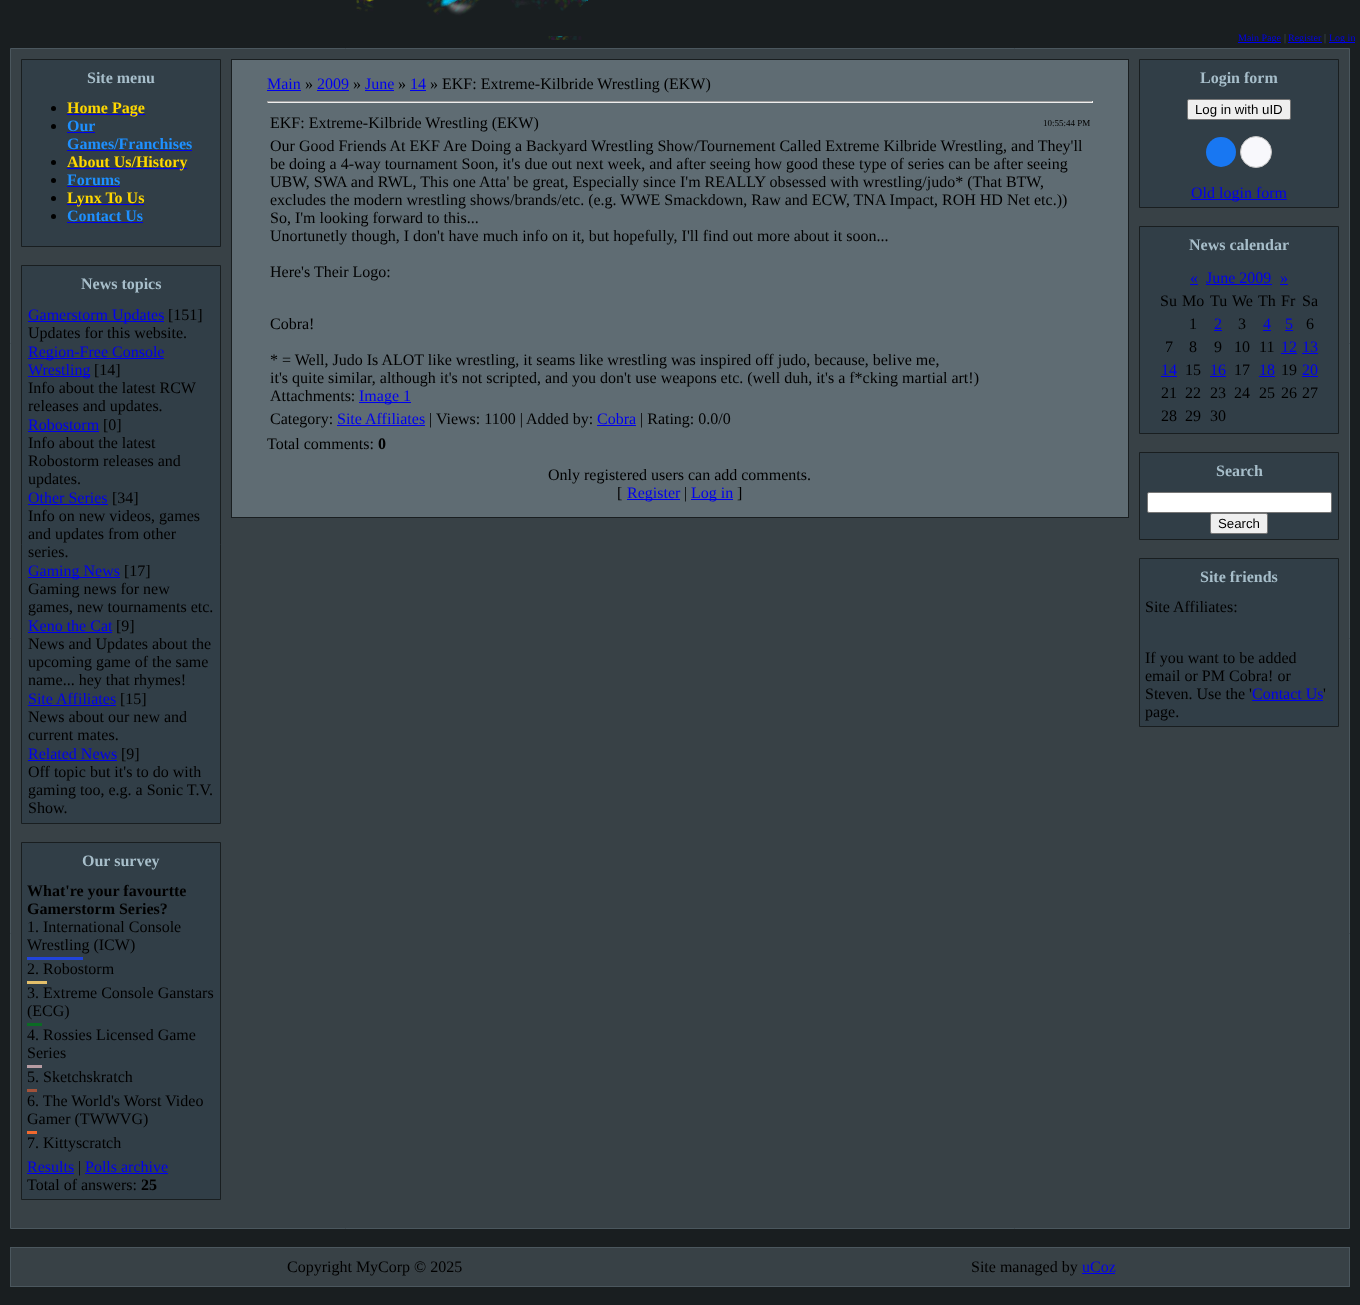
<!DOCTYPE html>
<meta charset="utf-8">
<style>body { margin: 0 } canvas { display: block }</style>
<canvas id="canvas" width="1360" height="1305"></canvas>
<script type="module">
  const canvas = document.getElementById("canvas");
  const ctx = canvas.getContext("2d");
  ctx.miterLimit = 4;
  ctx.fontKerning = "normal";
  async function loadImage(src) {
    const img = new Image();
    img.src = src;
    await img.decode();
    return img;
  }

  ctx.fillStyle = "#191e20";
  ctx.fillRect(0, 0, 1360, 1305);
  ctx.drawImage(await loadImage("img1.png"), 356, 0, 232, 40);
  ctx.fillStyle = "#0000ee";
  ctx.fillRect(1238, 42, 43, 1);
  ctx.font = "10px Liberation Serif";
  ctx.fillText("Main Page", 1238, 41);
  ctx.fillStyle = "#4b575e";
  ctx.fillText("|", 1284, 41);
  ctx.fillStyle = "#0000ee";
  ctx.fillRect(1288, 42, 34, 1);
  ctx.fillText("Register", 1288, 41);
  ctx.fillStyle = "#4b575e";
  ctx.fillText("|", 1324, 41);
  ctx.fillStyle = "#0000ee";
  ctx.fillRect(1329, 42, 26, 1);
  ctx.fillText("Log in", 1329, 41);
  ctx.fillStyle = "#384146";
  ctx.beginPath();
  ctx.rect(10.5, 48.5, 1339, 1180);
  ctx.fill();
  ctx.strokeStyle = "#4b575e";
  ctx.stroke();
  ctx.fillStyle = "#313e47";
  ctx.beginPath();
  ctx.rect(21.5, 59.5, 199, 187);
  ctx.fill();
  ctx.strokeStyle = "#191e20";
  ctx.stroke();
  ctx.font = "bold 16px Liberation Serif";
  ctx.fillStyle = "#a7beca";
  ctx.fillText("Site menu", 87, 83);
  ctx.fillStyle = "#000000";
  ctx.beginPath();
  ctx.arc(53.5, 108.5, 2.5, 0, Math.PI * 2);
  ctx.fill();
  ctx.fillStyle = "#0000ee";
  ctx.fillRect(67, 114, 78, 1);
  ctx.fillStyle = "#ffd700";
  ctx.fillText("Home Page", 67, 113);
  ctx.fillStyle = "#000000";
  ctx.beginPath();
  ctx.arc(53.5, 126.5, 2.5, 0, Math.PI * 2);
  ctx.fill();
  ctx.fillStyle = "#1e90ff";
  ctx.fillText("Our", 67, 131);
  ctx.fillStyle = "#0000ee";
  ctx.fillRect(67, 132, 28, 1);
  ctx.fillStyle = "#1e90ff";
  ctx.fillText("Games/Franchises", 67, 149);
  ctx.fillStyle = "#0000ee";
  ctx.fillRect(67, 150, 125, 1);
  ctx.fillStyle = "#000000";
  ctx.beginPath();
  ctx.arc(53.5, 162.5, 2.5, 0, Math.PI * 2);
  ctx.fill();
  ctx.fillStyle = "#0000ee";
  ctx.fillRect(67, 168, 120, 1);
  ctx.fillStyle = "#ffd700";
  ctx.fillText("About Us/History", 67, 167);
  ctx.fillStyle = "#000000";
  ctx.beginPath();
  ctx.arc(53.5, 180.5, 2.5, 0, Math.PI * 2);
  ctx.fill();
  ctx.fillStyle = "#1e90ff";
  ctx.fillText("Forums", 67, 185);
  ctx.fillStyle = "#0000ee";
  ctx.fillRect(67, 186, 53, 1);
  ctx.fillStyle = "#000000";
  ctx.beginPath();
  ctx.arc(53.5, 198.5, 2.5, 0, Math.PI * 2);
  ctx.fill();
  ctx.fillStyle = "#0000ee";
  ctx.fillRect(67, 204, 77, 1);
  ctx.fillStyle = "#ffd700";
  ctx.fillText("Lynx To Us", 67, 203);
  ctx.fillStyle = "#000000";
  ctx.beginPath();
  ctx.arc(53.5, 216.5, 2.5, 0, Math.PI * 2);
  ctx.fill();
  ctx.fillStyle = "#1e90ff";
  ctx.fillText("Contact Us", 67, 221);
  ctx.fillStyle = "#0000ee";
  ctx.fillRect(67, 222, 76, 1);
  ctx.fillStyle = "#313e47";
  ctx.beginPath();
  ctx.rect(21.5, 265.5, 199, 558);
  ctx.fill();
  ctx.stroke();
  ctx.fillStyle = "#a7beca";
  ctx.fillText("News topics", 81, 289);
  ctx.fillStyle = "#0000ee";
  ctx.fillRect(28, 321, 136, 1);
  ctx.font = "16px Liberation Serif";
  ctx.fillText("Gamerstorm Updates", 28, 320);
  ctx.fillStyle = "#000000";
  ctx.fillText("[151]", 168, 320);
  ctx.fillText("Updates for this website.", 28, 338);
  ctx.fillStyle = "#0000ee";
  ctx.fillRect(28, 358, 136, 1);
  ctx.fillText("Region-Free Console", 28, 357);
  ctx.fillRect(28, 376, 62, 1);
  ctx.fillText("Wrestling", 28, 375);
  ctx.fillStyle = "#000000";
  ctx.fillText("[14]", 94, 375);
  ctx.fillText("Info about the latest RCW", 28, 393);
  ctx.fillText("releases and updates.", 28, 411);
  ctx.fillStyle = "#0000ee";
  ctx.fillText("Robostorm", 28, 430);
  ctx.fillRect(28, 431, 71, 1);
  ctx.fillStyle = "#000000";
  ctx.fillText("[0]", 103, 430);
  ctx.fillText("Info about the latest", 28, 448);
  ctx.fillText("Robostorm releases and", 28, 466);
  ctx.fillText("updates.", 28, 484);
  ctx.fillStyle = "#0000ee";
  ctx.fillText("Other Series", 28, 503);
  ctx.fillRect(28, 504, 80, 1);
  ctx.fillStyle = "#000000";
  ctx.fillText("[34]", 112, 503);
  ctx.fillText("Info on new videos, games", 28, 521);
  ctx.fillText("and updates from other", 28, 539);
  ctx.fillText("series.", 28, 557);
  ctx.fillStyle = "#0000ee";
  ctx.fillRect(28, 577, 92, 1);
  ctx.fillText("Gaming News", 28, 576);
  ctx.fillStyle = "#000000";
  ctx.fillText("[17]", 124, 576);
  ctx.fillText("Gaming news for new", 28, 594);
  ctx.fillText("games, new tournaments etc.", 28, 612);
  ctx.fillStyle = "#0000ee";
  ctx.fillText("Keno the Cat", 28, 631);
  ctx.fillRect(28, 632, 84, 1);
  ctx.fillStyle = "#000000";
  ctx.fillText("[9]", 116, 631);
  ctx.fillText("News and Updates about the", 28, 649);
  ctx.fillText("upcoming game of the same", 28, 667);
  ctx.fillText("name... hey that rhymes!", 28, 685);
  ctx.fillStyle = "#0000ee";
  ctx.fillText("Site Affiliates", 28, 704);
  ctx.fillRect(28, 705, 88, 1);
  ctx.fillStyle = "#000000";
  ctx.fillText("[15]", 120, 704);
  ctx.fillText("News about our new and", 28, 722);
  ctx.fillText("current mates.", 28, 740);
  ctx.fillStyle = "#0000ee";
  ctx.fillText("Related News", 28, 759);
  ctx.fillRect(28, 760, 89, 1);
  ctx.fillStyle = "#000000";
  ctx.fillText("[9]", 121, 759);
  ctx.fillText("Off topic but it's to do with", 28, 777);
  ctx.fillText("gaming too, e.g. a Sonic T.V.", 28, 795);
  ctx.fillText("Show.", 28, 813);
  ctx.fillStyle = "#313e47";
  ctx.beginPath();
  ctx.rect(21.5, 842.5, 199, 357);
  ctx.fill();
  ctx.stroke();
  ctx.font = "bold 16px Liberation Serif";
  ctx.fillStyle = "#a7beca";
  ctx.fillText("Our survey", 82, 866);
  ctx.fillStyle = "#000000";
  ctx.fillText("What're your favourtte", 27, 896);
  ctx.fillText("Gamerstorm Series?", 27, 914);
  ctx.font = "16px Liberation Serif";
  ctx.fillText("1. International Console", 27, 932);
  ctx.fillText("Wrestling (ICW)", 27, 950);
  ctx.fillStyle = "#2144da";
  ctx.fillRect(27, 957, 56, 3);
  ctx.fillStyle = "#000000";
  ctx.fillText("2. Robostorm", 27, 974);
  ctx.fillStyle = "#e3bf6a";
  ctx.fillRect(27, 981, 20, 3);
  ctx.fillStyle = "#000000";
  ctx.fillText("3. Extreme Console Ganstars", 27, 998);
  ctx.fillText("(ECG)", 27, 1016);
  ctx.fillStyle = "#0b6c24";
  ctx.fillRect(27, 1023, 15, 3);
  ctx.fillStyle = "#000000";
  ctx.fillText("4. Rossies Licensed Game", 27, 1040);
  ctx.fillText("Series", 27, 1058);
  ctx.fillStyle = "#b79ca3";
  ctx.fillRect(27, 1065, 15, 3);
  ctx.fillStyle = "#000000";
  ctx.fillText("5. Sketchskratch", 27, 1082);
  ctx.fillStyle = "#a1523a";
  ctx.fillRect(27, 1089, 10, 3);
  ctx.fillStyle = "#000000";
  ctx.fillText("6. The World's Worst Video", 27, 1106);
  ctx.fillText("Gamer (TWWVG)", 27, 1124);
  ctx.fillStyle = "#f1692e";
  ctx.fillRect(27, 1131, 10, 3);
  ctx.fillStyle = "#000000";
  ctx.fillText("7. Kittyscratch", 27, 1148);
  ctx.fillStyle = "#0000ee";
  ctx.fillText("Results", 27, 1172);
  ctx.fillRect(27, 1173, 47, 1);
  ctx.fillStyle = "#000000";
  ctx.fillText("|", 78, 1172);
  ctx.fillStyle = "#0000ee";
  ctx.fillText("Polls archive", 85, 1172);
  ctx.fillRect(85, 1173, 83, 1);
  ctx.fillStyle = "#000000";
  ctx.fillText("Total of answers:", 27, 1190);
  ctx.font = "bold 16px Liberation Serif";
  ctx.fillText("25", 141, 1190);
  ctx.strokeRect(231.5, 59.5, 897, 458);
  ctx.fillStyle = "#5f6c73";
  ctx.fillRect(232, 60, 896, 457);
  ctx.font = "16px Liberation Serif";
  ctx.fillStyle = "#0000ee";
  ctx.fillText("Main", 267, 89);
  ctx.fillRect(267, 90, 34, 1);
  ctx.fillStyle = "#000000";
  ctx.fillText("»", 305, 89);
  ctx.fillStyle = "#0000ee";
  ctx.fillText("2009", 317, 89);
  ctx.fillRect(317, 90, 32, 1);
  ctx.fillStyle = "#000000";
  ctx.fillText("»", 353, 89);
  ctx.fillStyle = "#0000ee";
  ctx.fillText("June", 365, 89);
  ctx.fillRect(365, 90, 29, 1);
  ctx.fillStyle = "#000000";
  ctx.fillText("»", 398, 89);
  ctx.fillStyle = "#0000ee";
  ctx.fillText("14", 410, 89);
  ctx.fillRect(410, 90, 16, 1);
  ctx.fillStyle = "#000000";
  ctx.fillText("» EKF: Extreme-Kilbride Wrestling (EKW)", 430, 89);
  ctx.fillStyle = "#9f9f9f";
  ctx.fillRect(267, 101, 826, 1);
  ctx.fillStyle = "#eeeeee";
  ctx.fillRect(1092, 101, 1, 2);
  ctx.fillRect(267, 102, 826, 1);
  ctx.fillStyle = "#9f9f9f";
  ctx.fillRect(267, 101, 1, 2);
  ctx.fillStyle = "#000000";
  ctx.fillText("EKF: Extreme-Kilbride Wrestling (EKW)", 270, 128);
  ctx.font = "9px Liberation Serif";
  ctx.fillText("10:55:44 PM", 1043, 126);
  ctx.font = "16px Liberation Serif";
  ctx.fillText("Our Good Friends At EKF Are Doing a Backyard Wrestling Show/Tournement Called Extreme Kilbride Wrestling, and They'll", 270, 151);
  ctx.fillText("be doing a 4-way tournament Soon, it's due out next week, and after seeing how good these type of series can be after seeing", 270, 169);
  ctx.fillText("UBW, SWA and RWL, This one Atta' be great, Especially since I'm REALLY obsessed with wrestling/judo* (That BTW,", 270, 187);
  ctx.fillText("excludes the modern wrestling shows/brands/etc. (e.g. WWE Smackdown, Raw and ECW, TNA Impact, ROH HD Net etc.))", 270, 205);
  ctx.fillText("So, I'm looking forward to this...", 270, 223);
  ctx.fillText("Unortunetly though, I don't have much info on it, but hopefully, I'll find out more about it soon...", 270, 241);
  ctx.fillText("Here's Their Logo:", 270, 277);
  ctx.fillText("Cobra!", 270, 329);
  ctx.fillText("* = Well, Judo Is ALOT like wrestling, it seams like wrestling was inspired off judo, because, belive me,", 270, 365);
  ctx.fillText("it's quite similar, although it's not scripted, and you don't use weapons etc. (well duh, it's a f*cking martial art!)", 270, 383);
  ctx.fillText("Attachments:", 270, 401);
  ctx.fillStyle = "#0000ee";
  ctx.fillRect(359, 402, 52, 1);
  ctx.fillText("Image 1", 359, 401);
  ctx.fillStyle = "#000000";
  ctx.fillText("Category:", 270, 424);
  ctx.fillStyle = "#0000ee";
  ctx.fillText("Site Affiliates", 337, 424);
  ctx.fillRect(337, 425, 88, 1);
  ctx.fillStyle = "#000000";
  ctx.fillText("| Views: 1100 | Added by:", 429, 424);
  ctx.fillStyle = "#0000ee";
  ctx.fillText("Cobra", 597, 424);
  ctx.fillRect(597, 425, 39, 1);
  ctx.fillStyle = "#000000";
  ctx.fillText("| Rating: 0.0/0", 640, 424);
  ctx.fillText("Total comments:", 267, 449);
  ctx.font = "bold 16px Liberation Serif";
  ctx.fillText("0", 378, 449);
  ctx.font = "16px Liberation Serif";
  ctx.fillText("Only registered users can add comments.", 548, 480);
  ctx.fillText("[", 617, 498);
  ctx.fillStyle = "#0000ee";
  ctx.fillRect(627, 499, 53, 1);
  ctx.fillText("Register", 627, 498);
  ctx.fillStyle = "#000000";
  ctx.fillText("|", 684, 498);
  ctx.fillStyle = "#0000ee";
  ctx.fillRect(691, 499, 42, 1);
  ctx.fillText("Log in", 691, 498);
  ctx.fillStyle = "#000000";
  ctx.fillText("]", 737, 498);
  ctx.fillStyle = "#313e47";
  ctx.beginPath();
  ctx.rect(1139.5, 59.5, 199, 148);
  ctx.fill();
  ctx.stroke();
  ctx.font = "bold 16px Liberation Serif";
  ctx.fillStyle = "#a7beca";
  ctx.fillText("Login form", 1200, 83);
  ctx.fillStyle = "#efefef";
  ctx.beginPath();
  ctx.roundRect(1187.5, 99.5, 103, 20, 1.5);
  ctx.fill();
  ctx.strokeStyle = "#767676";
  ctx.stroke();
  ctx.font = "13.25px Liberation Sans";
  ctx.fillStyle = "#000000";
  ctx.fillText("Log in with uID", 1195, 114);
  ctx.fillStyle = "#1877f2";
  ctx.beginPath();
  ctx.arc(1221, 152, 15, 0, Math.PI * 2);
  ctx.fill();
  ctx.fillStyle = "#f8f8fc";
  ctx.beginPath();
  ctx.arc(1256, 152, 15.5, 0, Math.PI * 2);
  ctx.fill();
  ctx.strokeStyle = "#c4c4c4";
  ctx.stroke();
  ctx.fillStyle = "#0000ee";
  ctx.fillRect(1191, 199, 96, 1);
  ctx.font = "16px Liberation Serif";
  ctx.fillText("Old login form", 1191, 198);
  ctx.fillStyle = "#313e47";
  ctx.beginPath();
  ctx.rect(1139.5, 226.5, 199, 207);
  ctx.fill();
  ctx.strokeStyle = "#191e20";
  ctx.stroke();
  ctx.font = "bold 16px Liberation Serif";
  ctx.fillStyle = "#a7beca";
  ctx.fillText("News calendar", 1189, 250);
  ctx.font = "16px Liberation Serif";
  ctx.fillStyle = "#0000ee";
  ctx.fillText("«", 1190, 283);
  ctx.fillRect(1190, 284, 8, 1);
  ctx.fillText("June 2009", 1206, 283);
  ctx.fillRect(1206, 284, 66, 1);
  ctx.fillText("»", 1280, 283);
  ctx.fillRect(1280, 284, 8, 1);
  ctx.fillStyle = "#000000";
  ctx.fillText("Su", 1160, 306);
  ctx.fillText("Mo", 1182, 306);
  ctx.fillText("Tu", 1210, 306);
  ctx.fillText("We", 1232, 306);
  ctx.fillText("Th", 1258, 306);
  ctx.fillText("Fr", 1281, 306);
  ctx.fillText("Sa", 1302, 306);
  ctx.fillText("1", 1189, 329);
  ctx.fillStyle = "#0000ee";
  ctx.fillText("2", 1214, 329);
  ctx.fillRect(1214, 330, 8, 1);
  ctx.fillStyle = "#000000";
  ctx.fillText("3", 1238, 329);
  ctx.fillStyle = "#0000ee";
  ctx.fillText("4", 1263, 329);
  ctx.fillRect(1263, 330, 8, 1);
  ctx.fillText("5", 1285, 329);
  ctx.fillRect(1285, 330, 8, 1);
  ctx.fillStyle = "#000000";
  ctx.fillText("6", 1306, 329);
  ctx.fillText("7", 1165, 352);
  ctx.fillText("8", 1189, 352);
  ctx.fillText("9", 1214, 352);
  ctx.fillText("10", 1234, 352);
  ctx.fillText("11", 1259, 352);
  ctx.fillStyle = "#0000ee";
  ctx.fillText("12", 1281, 352);
  ctx.fillRect(1281, 353, 16, 1);
  ctx.fillText("13", 1302, 352);
  ctx.fillRect(1302, 353, 16, 1);
  ctx.fillText("14", 1161, 375);
  ctx.fillRect(1161, 376, 16, 1);
  ctx.fillStyle = "#000000";
  ctx.fillText("15", 1185, 375);
  ctx.fillStyle = "#0000ee";
  ctx.fillText("16", 1210, 375);
  ctx.fillRect(1210, 376, 16, 1);
  ctx.fillStyle = "#000000";
  ctx.fillText("17", 1234, 375);
  ctx.fillStyle = "#0000ee";
  ctx.fillText("18", 1259, 375);
  ctx.fillRect(1259, 376, 16, 1);
  ctx.fillStyle = "#000000";
  ctx.fillText("19", 1281, 375);
  ctx.fillStyle = "#0000ee";
  ctx.fillText("20", 1302, 375);
  ctx.fillRect(1302, 376, 16, 1);
  ctx.fillStyle = "#000000";
  ctx.fillText("21", 1161, 398);
  ctx.fillText("22", 1185, 398);
  ctx.fillText("23", 1210, 398);
  ctx.fillText("24", 1234, 398);
  ctx.fillText("25", 1259, 398);
  ctx.fillText("26", 1281, 398);
  ctx.fillText("27", 1302, 398);
  ctx.fillText("28", 1161, 421);
  ctx.fillText("29", 1185, 421);
  ctx.fillText("30", 1210, 421);
  ctx.fillStyle = "#313e47";
  ctx.beginPath();
  ctx.rect(1139.5, 452.5, 199, 87);
  ctx.fill();
  ctx.stroke();
  ctx.font = "bold 16px Liberation Serif";
  ctx.fillStyle = "#a7beca";
  ctx.fillText("Search", 1216, 476);
  ctx.fillStyle = "#ffffff";
  ctx.beginPath();
  ctx.roundRect(1147.5, 492.5, 184, 20, 1.5);
  ctx.fill();
  ctx.strokeStyle = "#767676";
  ctx.stroke();
  ctx.fillStyle = "#efefef";
  ctx.beginPath();
  ctx.roundRect(1210.5, 513.5, 57, 20, 1.5);
  ctx.fill();
  ctx.stroke();
  ctx.font = "13.25px Liberation Sans";
  ctx.fillStyle = "#000000";
  ctx.fillText("Search", 1218, 528);
  ctx.fillStyle = "#313e47";
  ctx.beginPath();
  ctx.rect(1139.5, 558.5, 199, 168);
  ctx.fill();
  ctx.strokeStyle = "#191e20";
  ctx.stroke();
  ctx.font = "bold 16px Liberation Serif";
  ctx.fillStyle = "#a7beca";
  ctx.fillText("Site friends", 1200, 582);
  ctx.font = "16px Liberation Serif";
  ctx.fillStyle = "#000000";
  ctx.fillText("Site Affiliates:", 1145, 612);
  ctx.fillText("If you want to be added", 1145, 663);
  ctx.fillText("email or PM Cobra! or", 1145, 681);
  ctx.fillText("Steven. Use the '", 1145, 699);
  ctx.fillStyle = "#0000ee";
  ctx.fillText("Contact Us", 1252, 699);
  ctx.fillRect(1252, 700, 71, 1);
  ctx.fillStyle = "#000000";
  ctx.fillText("'", 1323, 699);
  ctx.fillText("page.", 1145, 717);
  ctx.strokeStyle = "#4b575e";
  ctx.strokeRect(10.5, 1247.5, 1339, 39);
  ctx.fillStyle = "#384146";
  ctx.fillRect(11, 1248, 1338, 38);
  ctx.fillStyle = "#000000";
  ctx.fillText("Copyright MyCorp © 2025", 287, 1272);
  ctx.fillText("Site managed by", 971, 1272);
  ctx.fillStyle = "#0000ee";
  ctx.fillText("uCoz", 1082, 1272);
  ctx.fillRect(1082, 1273, 33, 1);
</script>
